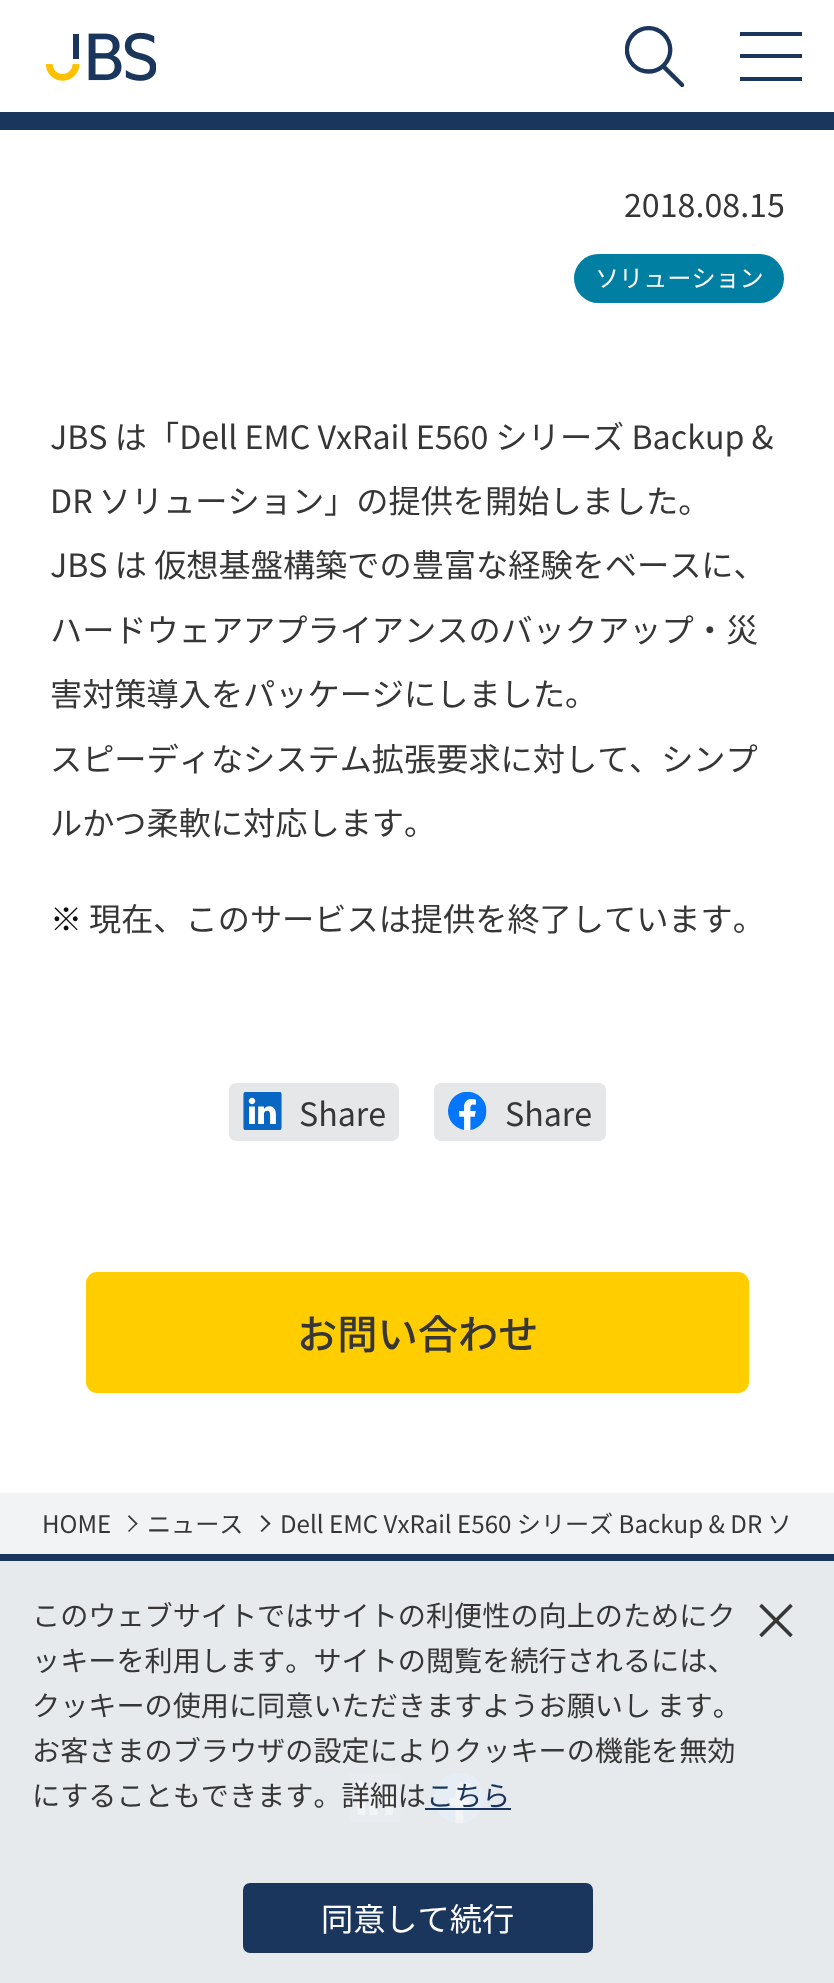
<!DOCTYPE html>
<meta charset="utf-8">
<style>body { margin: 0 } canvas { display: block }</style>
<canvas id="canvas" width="834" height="1983"></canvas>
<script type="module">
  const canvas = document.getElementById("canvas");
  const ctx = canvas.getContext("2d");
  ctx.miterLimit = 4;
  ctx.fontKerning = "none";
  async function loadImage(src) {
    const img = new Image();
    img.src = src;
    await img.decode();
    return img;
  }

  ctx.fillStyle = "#ffffff";
  ctx.fillRect(0, 0, 834, 1983);
  ctx.drawImage(await loadImage("img1.png"), 46, 32, 110, 49);
  ctx.drawImage(await loadImage("img2.png"), 625, 26, 59, 61);
  ctx.fillStyle = "#1b365d";
  ctx.fillRect(740, 32, 62, 4);
  ctx.fillRect(740, 54, 62, 4);
  ctx.fillRect(740, 77, 62, 4);
  ctx.fillRect(0, 112, 834, 18);
  ctx.font = "32.2px Noto Sans JP";
  ctx.fillStyle = "#363636";
  ctx.fillText("2018.08.15", 624, 217);
  ctx.fillStyle = "#007fa3";
  ctx.beginPath();
  ctx.roundRect(574, 254, 210, 49, 24.5);
  ctx.fill();
  ctx.font = "24.1px Noto Sans JP";
  ctx.fillStyle = "#ffffff";
  ctx.fillText("ソリューション", 595, 287);
  ctx.font = "32.2px Noto Sans JP";
  ctx.fillStyle = "#363636";
  ctx.fillText("JBS は「Dell EMC VxRail E560 シリーズ Backup &", 50, 449);
  ctx.wordSpacing = "-1px";
  ctx.fillText("DR ソリューション」の提供を開始しました。", 50, 513);
  ctx.wordSpacing = "0px";
  ctx.fillText("JBS は 仮想基盤構築での豊富な経験をベースに、", 50, 577);
  ctx.fillText("ハードウェアアプライアンスのバックアップ・災", 50, 642);
  ctx.fillText("害対策導入をパッケージにしました。", 50, 706);
  ctx.fillText("スピーディなシステム拡張要求に対して", 50, 771);
  ctx.fillText("、シンプ", 629, 771);
  ctx.fillText("ルかつ柔軟に対応します。", 50, 835);
  ctx.fillStyle = "#0d0d0d";
  ctx.fillText("※", 50, 931);
  ctx.fillStyle = "#363636";
  ctx.fillText("現在、このサービスは提供を終了しています。", 89, 931);
  ctx.fillStyle = "#e5e7e8";
  ctx.beginPath();
  ctx.roundRect(229, 1083, 170, 58, 7);
  ctx.fill();
  ctx.drawImage(await loadImage("img3.png"), 243, 1092, 39, 38);
  ctx.fillStyle = "#363636";
  ctx.fillText("Share", 299, 1126);
  ctx.fillStyle = "#e5e7e8";
  ctx.beginPath();
  ctx.roundRect(434, 1083, 172, 58, 7);
  ctx.fill();
  ctx.drawImage(await loadImage("img4.png"), 448, 1092, 39, 38);
  ctx.fillStyle = "#363636";
  ctx.fillText("Share", 505, 1126);
  ctx.fillStyle = "#ffcd00";
  ctx.beginPath();
  ctx.roundRect(86, 1272, 663, 121, 11);
  ctx.fill();
  ctx.font = "500 40.25px Noto Sans JP";
  ctx.fillStyle = "#363636";
  ctx.fillText("お問い合わせ", 297, 1349);
  ctx.fillStyle = "#f2f3f4";
  ctx.fillRect(0, 1493, 834, 61);
  ctx.font = "24.1px Noto Sans JP";
  ctx.fillStyle = "#363636";
  ctx.fillText("HOME", 42, 1533);
  ctx.beginPath();
  ctx.moveTo(129, 1515);
  ctx.lineTo(137.5, 1523.5);
  ctx.lineTo(136.5, 1525);
  ctx.lineTo(128, 1516.5);
  ctx.closePath();
  ctx.fill();
  ctx.beginPath();
  ctx.moveTo(136.5, 1522.5);
  ctx.lineTo(137.5, 1523.5);
  ctx.lineTo(129, 1532);
  ctx.lineTo(128, 1531);
  ctx.closePath();
  ctx.fill();
  ctx.fillText("ニュース", 147, 1533);
  ctx.beginPath();
  ctx.moveTo(262, 1515);
  ctx.lineTo(270.5, 1523.5);
  ctx.lineTo(269, 1525);
  ctx.lineTo(260.5, 1516.5);
  ctx.closePath();
  ctx.fill();
  ctx.beginPath();
  ctx.moveTo(269, 1522.5);
  ctx.lineTo(270.5, 1523.5);
  ctx.lineTo(262, 1532);
  ctx.lineTo(260.5, 1531);
  ctx.closePath();
  ctx.fill();
  ctx.save();
  ctx.beginPath();
  ctx.rect(243, 1509, 550, 29);
  ctx.clip();
  ctx.fillText("Dell EMC VxRail E560 シリーズ Backup & DR ソ", 280, 1533);
  ctx.restore();
  ctx.fillStyle = "#1b365d";
  ctx.fillRect(0, 1554, 834, 7);
  ctx.fillStyle = "#e7eaec";
  ctx.fillRect(0, 1561, 834, 422);
  ctx.drawImage(await loadImage("img5.png"), 350, 1773, 51, 50);
  ctx.drawImage(await loadImage("img6.png"), 434, 1773, 51, 50);
  ctx.font = "28.15px Noto Sans JP";
  ctx.fillStyle = "#363636";
  ctx.fillText("このウェブサイトではサイトの利便性の向上のためにク", 32, 1626);
  ctx.fillText("ッキーを利用します。サイトの閲覧を続行されるには、", 32, 1671);
  ctx.wordSpacing = "-1px";
  ctx.fillText("クッキーの使用に同意いただきますようお願いし ます。", 32, 1716);
  ctx.wordSpacing = "0px";
  ctx.fillText("お客さまのブラウザの設定によりクッキーの機能を無効", 32, 1761);
  ctx.fillText("にすることもできます。詳細は", 32, 1806);
  ctx.fillStyle = "#1b365d";
  ctx.fillText("こちら", 426, 1806);
  ctx.fillRect(425, 1808, 86, 2);
  ctx.font = "52px Noto Sans JP";
  ctx.fillStyle = "#363636";
  ctx.fillText("×", 750, 1640);
  ctx.fillStyle = "#1b365d";
  ctx.beginPath();
  ctx.roundRect(243, 1883, 350, 70, 7);
  ctx.fill();
  ctx.font = "32.2px Noto Sans JP";
  ctx.fillStyle = "#ffffff";
  ctx.fillText("同意して続行", 321, 1931);
</script>
